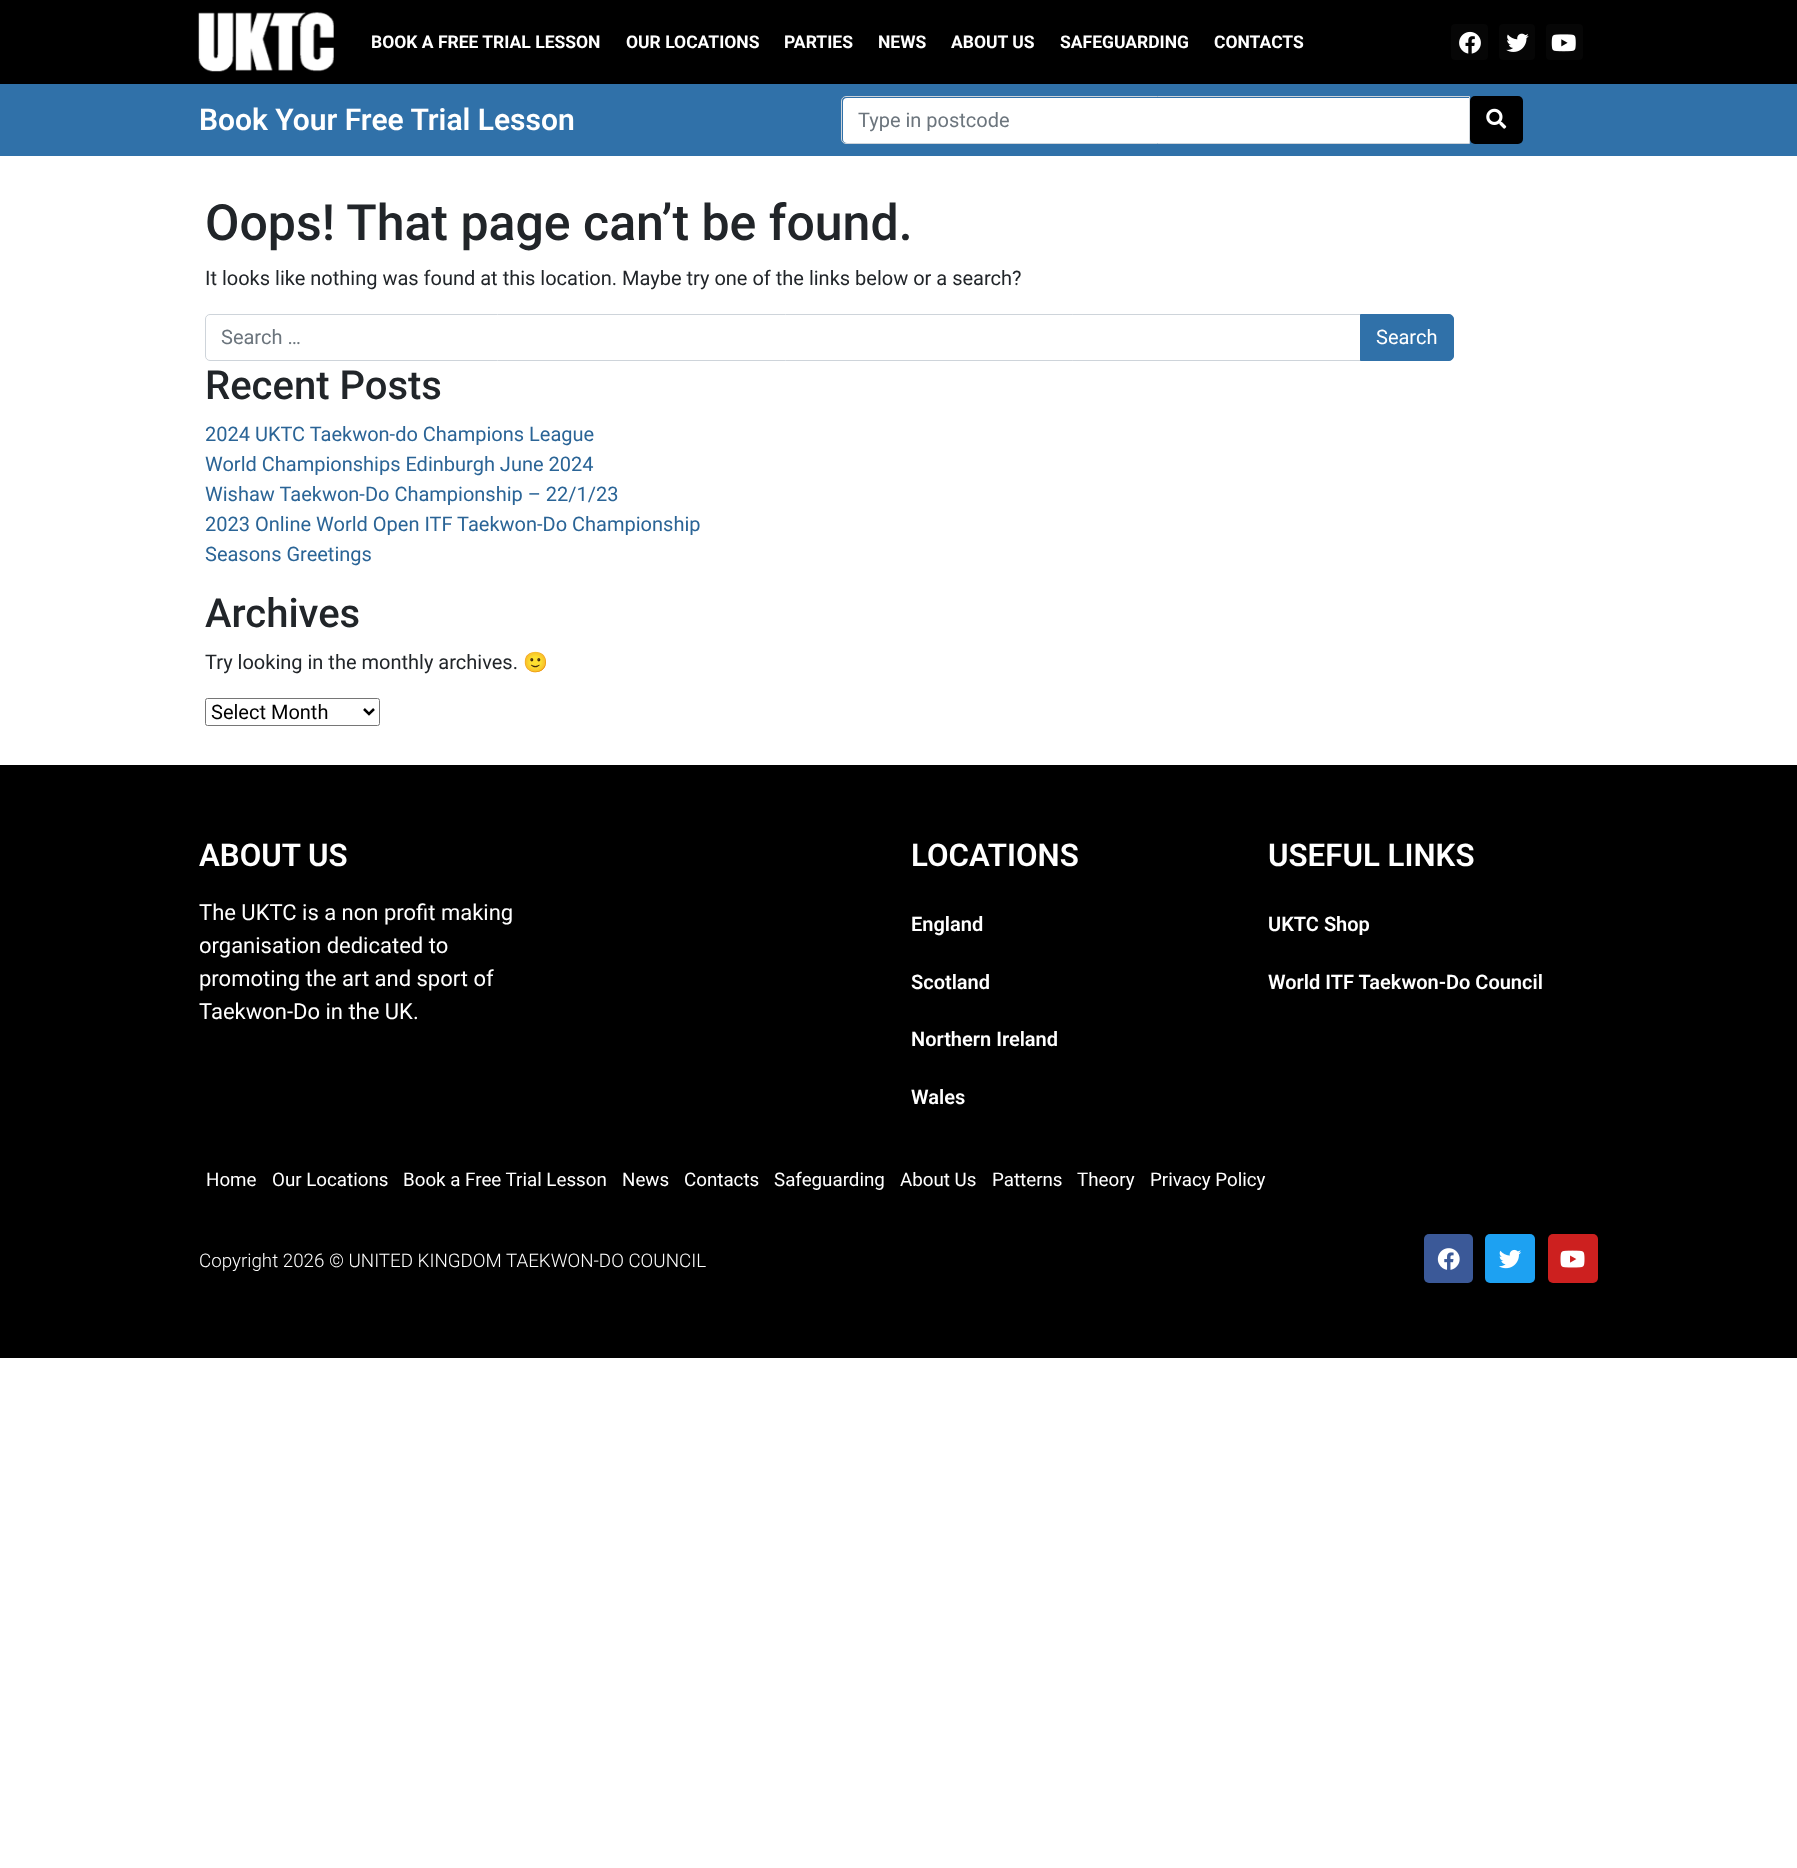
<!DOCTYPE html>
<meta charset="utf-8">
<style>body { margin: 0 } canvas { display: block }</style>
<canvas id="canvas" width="1797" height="1868"></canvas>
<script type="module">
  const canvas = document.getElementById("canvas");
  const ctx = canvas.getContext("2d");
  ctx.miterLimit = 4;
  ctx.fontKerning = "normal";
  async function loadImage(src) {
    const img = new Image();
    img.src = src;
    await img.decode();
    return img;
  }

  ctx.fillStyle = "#ffffff";
  ctx.fillRect(0, 0, 1797, 1868);
  ctx.fillStyle = "#000000";
  ctx.fillRect(0, 0, 1797, 84);
  ctx.drawImage(await loadImage("img1.png"), 198, 12, 136, 60);
  ctx.font = "bold 17.5px Roboto";
  ctx.fillStyle = "#ffffff";
  ctx.fillText("BOOK A FREE TRIAL LESSON", 371, 48);
  ctx.fillText("OUR LOCATIONS", 626, 48);
  ctx.fillText("PARTIES", 784, 48);
  ctx.fillText("NEWS", 878, 48);
  ctx.fillText("ABOUT US", 951, 48);
  ctx.fillText("SAFEGUARDING", 1060, 48);
  ctx.fillText("CONTACTS", 1214, 48);
  ctx.fillStyle = "#060606";
  ctx.beginPath();
  ctx.roundRect(1451, 24, 37, 36, 4);
  ctx.fill();
  ctx.drawImage(await loadImage("img2.png"), 1459, 31, 22, 23);
  ctx.beginPath();
  ctx.roundRect(1499, 24, 36, 36, 4);
  ctx.fill();
  ctx.drawImage(await loadImage("img3.png"), 1506, 33, 23, 19);
  ctx.beginPath();
  ctx.roundRect(1546, 24, 37, 36, 4);
  ctx.fill();
  ctx.drawImage(await loadImage("img4.png"), 1551, 34, 25, 18);
  ctx.fillStyle = "#3071a9";
  ctx.fillRect(0, 84, 1797, 72);
  ctx.font = "600 30px Roboto";
  ctx.fillStyle = "#ffffff";
  ctx.fillText("Book Your Free Trial Lesson", 199, 130);
  ctx.beginPath();
  ctx.roundRect(843, 98, 626, 45, [4, 0, 0, 4]);
  ctx.fill();
  ctx.beginPath();
  ctx.roundRect(841.5, 96.5, 628, 47, [4.5, 0, 0, 4.5]);
  ctx.strokeStyle = "#ced4da";
  ctx.stroke();
  ctx.font = "20px Roboto";
  ctx.fillStyle = "#6c757d";
  ctx.fillText("Type in postcode", 858, 127);
  ctx.fillStyle = "#000000";
  ctx.beginPath();
  ctx.roundRect(1470, 96, 53, 48, 5);
  ctx.fill();
  ctx.drawImage(await loadImage("img5.png"), 1486, 108, 21, 21);
  ctx.font = "500 50px Roboto";
  ctx.fillStyle = "#212529";
  ctx.fillText("Oops! That page can’t be found.", 205, 240);
  ctx.font = "20px Roboto";
  ctx.fillText("It looks like nothing was found at this location. Maybe try one of the links below or a search?", 205, 285);
  ctx.beginPath();
  ctx.roundRect(205.5, 314.5, 1155, 46, [4.5, 0, 0, 4.5]);
  ctx.stroke();
  ctx.fillStyle = "#6c757d";
  ctx.fillText("Search …", 221, 344);
  ctx.fillStyle = "#3071a9";
  ctx.beginPath();
  ctx.roundRect(1360.5, 314.5, 93, 46, [0, 4.5, 4.5, 0]);
  ctx.fill();
  ctx.strokeStyle = "#3071a9";
  ctx.stroke();
  ctx.fillStyle = "#ffffff";
  ctx.fillText("Search", 1376, 344);
  ctx.font = "500 40px Roboto";
  ctx.fillStyle = "#212529";
  ctx.fillText("Recent Posts", 205, 399);
  ctx.font = "20px Roboto";
  ctx.fillStyle = "#2a6496";
  ctx.fillText("2024 UKTC Taekwon-do Champions League", 205, 441);
  ctx.fillText("World Championships Edinburgh June 2024", 205, 471);
  ctx.fillText("Wishaw Taekwon-Do Championship – 22/1/23", 205, 501);
  ctx.fillText("2023 Online World Open ITF Taekwon-Do Championship", 205, 531);
  ctx.fillText("Seasons Greetings", 205, 561);
  ctx.font = "500 40px Roboto";
  ctx.fillStyle = "#212529";
  ctx.fillText("Archives", 205, 627);
  ctx.font = "20px Roboto";
  ctx.fillText("Try looking in the monthly archives.", 205, 669);
  ctx.font = "20px Noto Color Emoji";
  ctx.fillText("🙂", 523, 669);
  ctx.beginPath();
  ctx.roundRect(205.5, 698.5, 174, 27, 2);
  ctx.strokeStyle = "#767676";
  ctx.stroke();
  ctx.beginPath();
  ctx.moveTo(364, 709);
  ctx.lineTo(369, 714);
  ctx.lineTo(374, 709);
  ctx.strokeStyle = "#000000";
  ctx.lineWidth = 2.5;
  ctx.stroke();
  ctx.font = "20px Roboto";
  ctx.fillStyle = "#000000";
  ctx.fillText("Select Month", 211, 719);
  ctx.fillRect(0, 765, 1797, 593);
  ctx.font = "600 31.25px Roboto";
  ctx.fillStyle = "#ffffff";
  ctx.fillText("ABOUT US", 199, 866);
  ctx.font = "22px Roboto";
  ctx.fillText("The UKTC is a non profit making", 199, 920);
  ctx.fillText("organisation dedicated to", 199, 953);
  ctx.fillText("promoting the art and sport of", 199, 986);
  ctx.fillText("Taekwon-Do in the UK.", 199, 1019);
  ctx.font = "600 31.25px Roboto";
  ctx.fillText("LOCATIONS", 911, 866);
  ctx.font = "600 20px Roboto";
  ctx.fillText("England", 911, 931);
  ctx.fillText("Scotland", 911, 989);
  ctx.fillText("Northern Ireland", 911, 1046);
  ctx.fillText("Wales", 911, 1104);
  ctx.font = "600 31.25px Roboto";
  ctx.fillText("USEFUL LINKS", 1268, 866);
  ctx.font = "600 20px Roboto";
  ctx.fillText("UKTC Shop", 1268, 931);
  ctx.fillText("World ITF Taekwon-Do Council", 1268, 989);
  ctx.font = "18.75px Roboto";
  ctx.fillText("Home", 206, 1186);
  ctx.fillText("Our Locations", 272, 1186);
  ctx.fillText("Book a Free Trial Lesson", 403, 1186);
  ctx.fillText("News", 622, 1186);
  ctx.fillText("Contacts", 684, 1186);
  ctx.fillText("Safeguarding", 774, 1186);
  ctx.fillText("About Us", 900, 1186);
  ctx.fillText("Patterns", 992, 1186);
  ctx.fillText("Theory", 1077, 1186);
  ctx.fillText("Privacy Policy", 1150, 1186);
  ctx.font = "300 18.75px Roboto";
  ctx.fillText("Copyright 2026 © UNITED KINGDOM TAEKWON-DO COUNCIL", 199, 1267);
  ctx.fillStyle = "#3b5998";
  ctx.beginPath();
  ctx.roundRect(1424, 1234, 49, 49, 5);
  ctx.fill();
  ctx.drawImage(await loadImage("img6.png"), 1437, 1248, 23, 22);
  ctx.fillStyle = "#1da1f2";
  ctx.beginPath();
  ctx.roundRect(1485, 1234, 50, 49, 5);
  ctx.fill();
  ctx.drawImage(await loadImage("img7.png"), 1499, 1249, 23, 20);
  ctx.fillStyle = "#cd201f";
  ctx.beginPath();
  ctx.roundRect(1548, 1234, 50, 49, 5);
  ctx.fill();
  ctx.drawImage(await loadImage("img8.png"), 1560, 1250, 25, 18);
</script>
